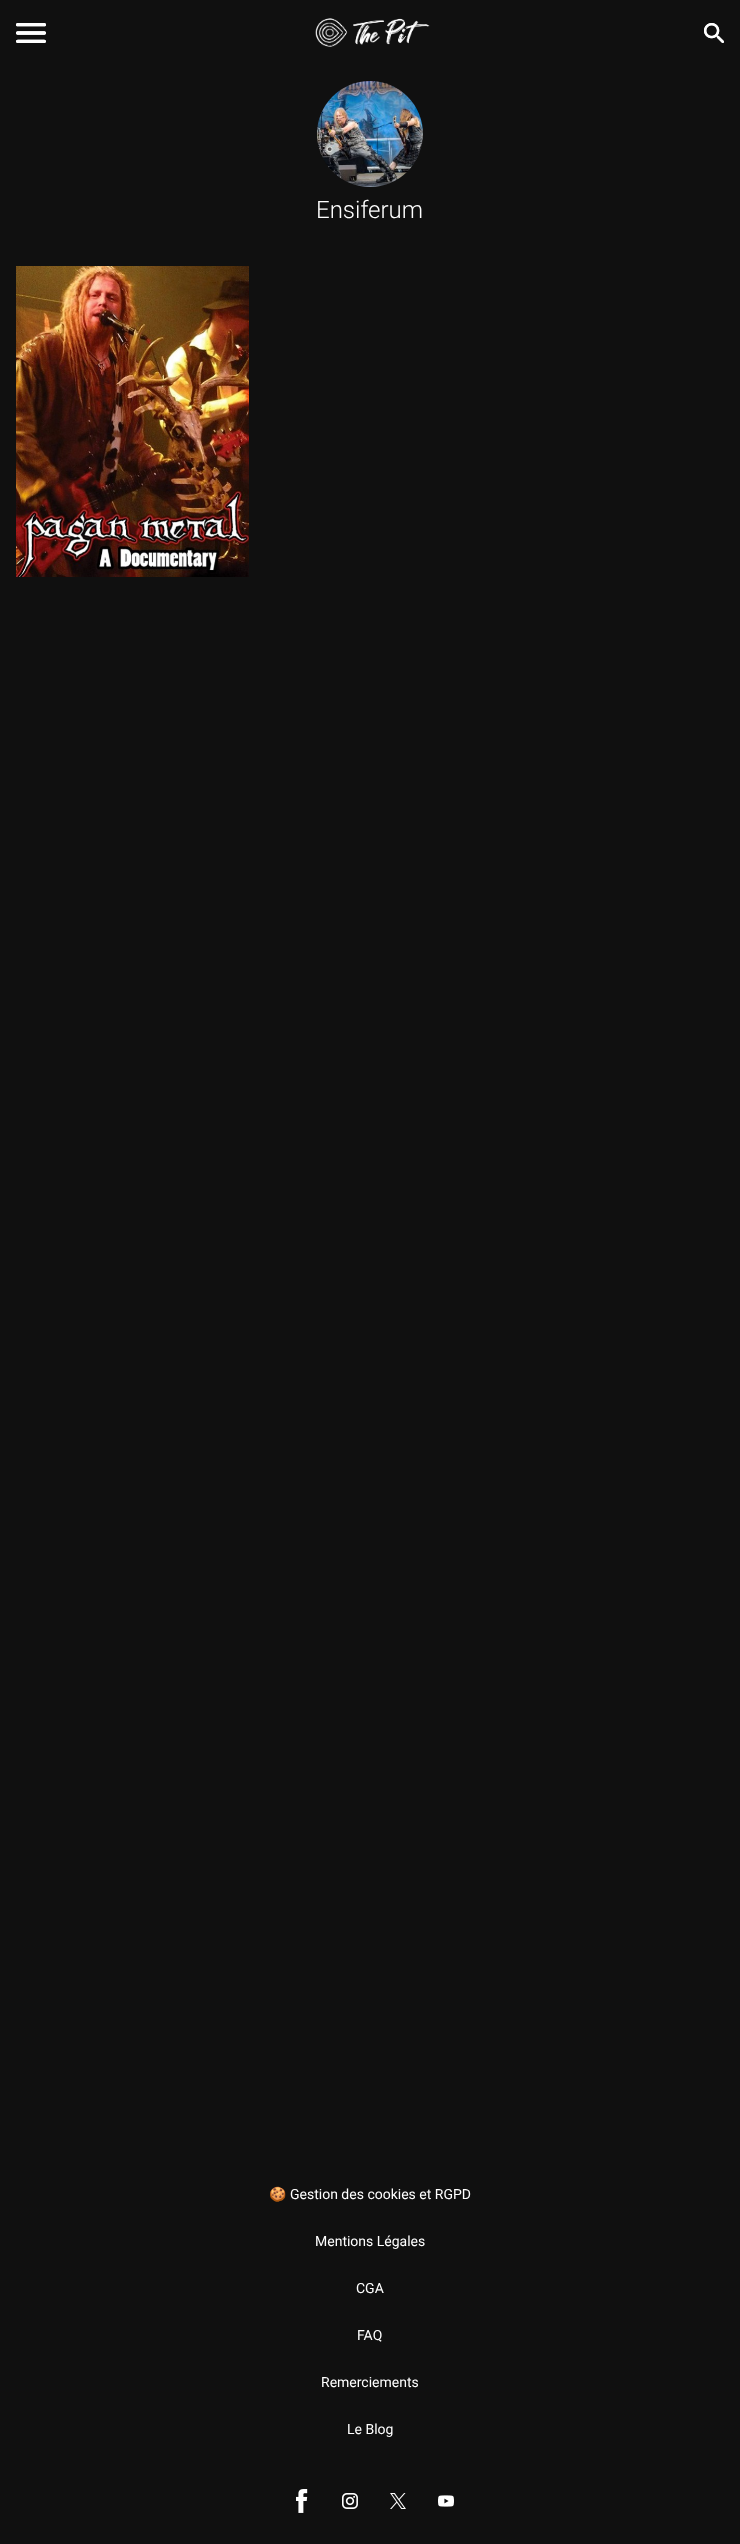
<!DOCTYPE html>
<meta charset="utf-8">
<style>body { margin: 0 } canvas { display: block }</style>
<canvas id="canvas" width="740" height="2544"></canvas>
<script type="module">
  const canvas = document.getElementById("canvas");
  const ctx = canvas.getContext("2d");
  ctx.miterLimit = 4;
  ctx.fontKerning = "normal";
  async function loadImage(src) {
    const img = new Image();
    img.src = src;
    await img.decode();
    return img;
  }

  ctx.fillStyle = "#101010";
  ctx.fillRect(0, 0, 740, 2544);
  ctx.drawImage(await loadImage("img1.png"), 16, 23, 30, 20);
  ctx.drawImage(await loadImage("img2.png"), 315, 18, 115, 29);
  ctx.drawImage(await loadImage("img3.png"), 704, 23, 20, 20);
  ctx.drawImage(await loadImage("img4.png"), 317, 81, 106, 106);
  ctx.font = "300 24px Roboto";
  ctx.fillStyle = "#ffffff";
  ctx.fillText("Ensiferum", 316, 218);
  ctx.drawImage(await loadImage("img5.png"), 16, 266, 233, 311);
  ctx.font = "14px Noto Color Emoji";
  ctx.fillText("🍪", 269, 2199);
  ctx.font = "14px Roboto";
  ctx.fillText("Gestion des cookies et RGPD", 290, 2199);
  ctx.fillText("Mentions Légales", 315, 2246);
  ctx.fillText("CGA", 356, 2293);
  ctx.fillText("FAQ", 357, 2340);
  ctx.fillText("Remerciements", 321, 2387);
  ctx.fillText("Le Blog", 347, 2434);
  ctx.drawImage(await loadImage("img6.png"), 296, 2489, 12, 24);
  ctx.drawImage(await loadImage("img7.png"), 342, 2493, 16, 16);
  ctx.drawImage(await loadImage("img8.png"), 390, 2493, 16, 16);
  ctx.drawImage(await loadImage("img9.png"), 438, 2495, 16, 12);
</script>
